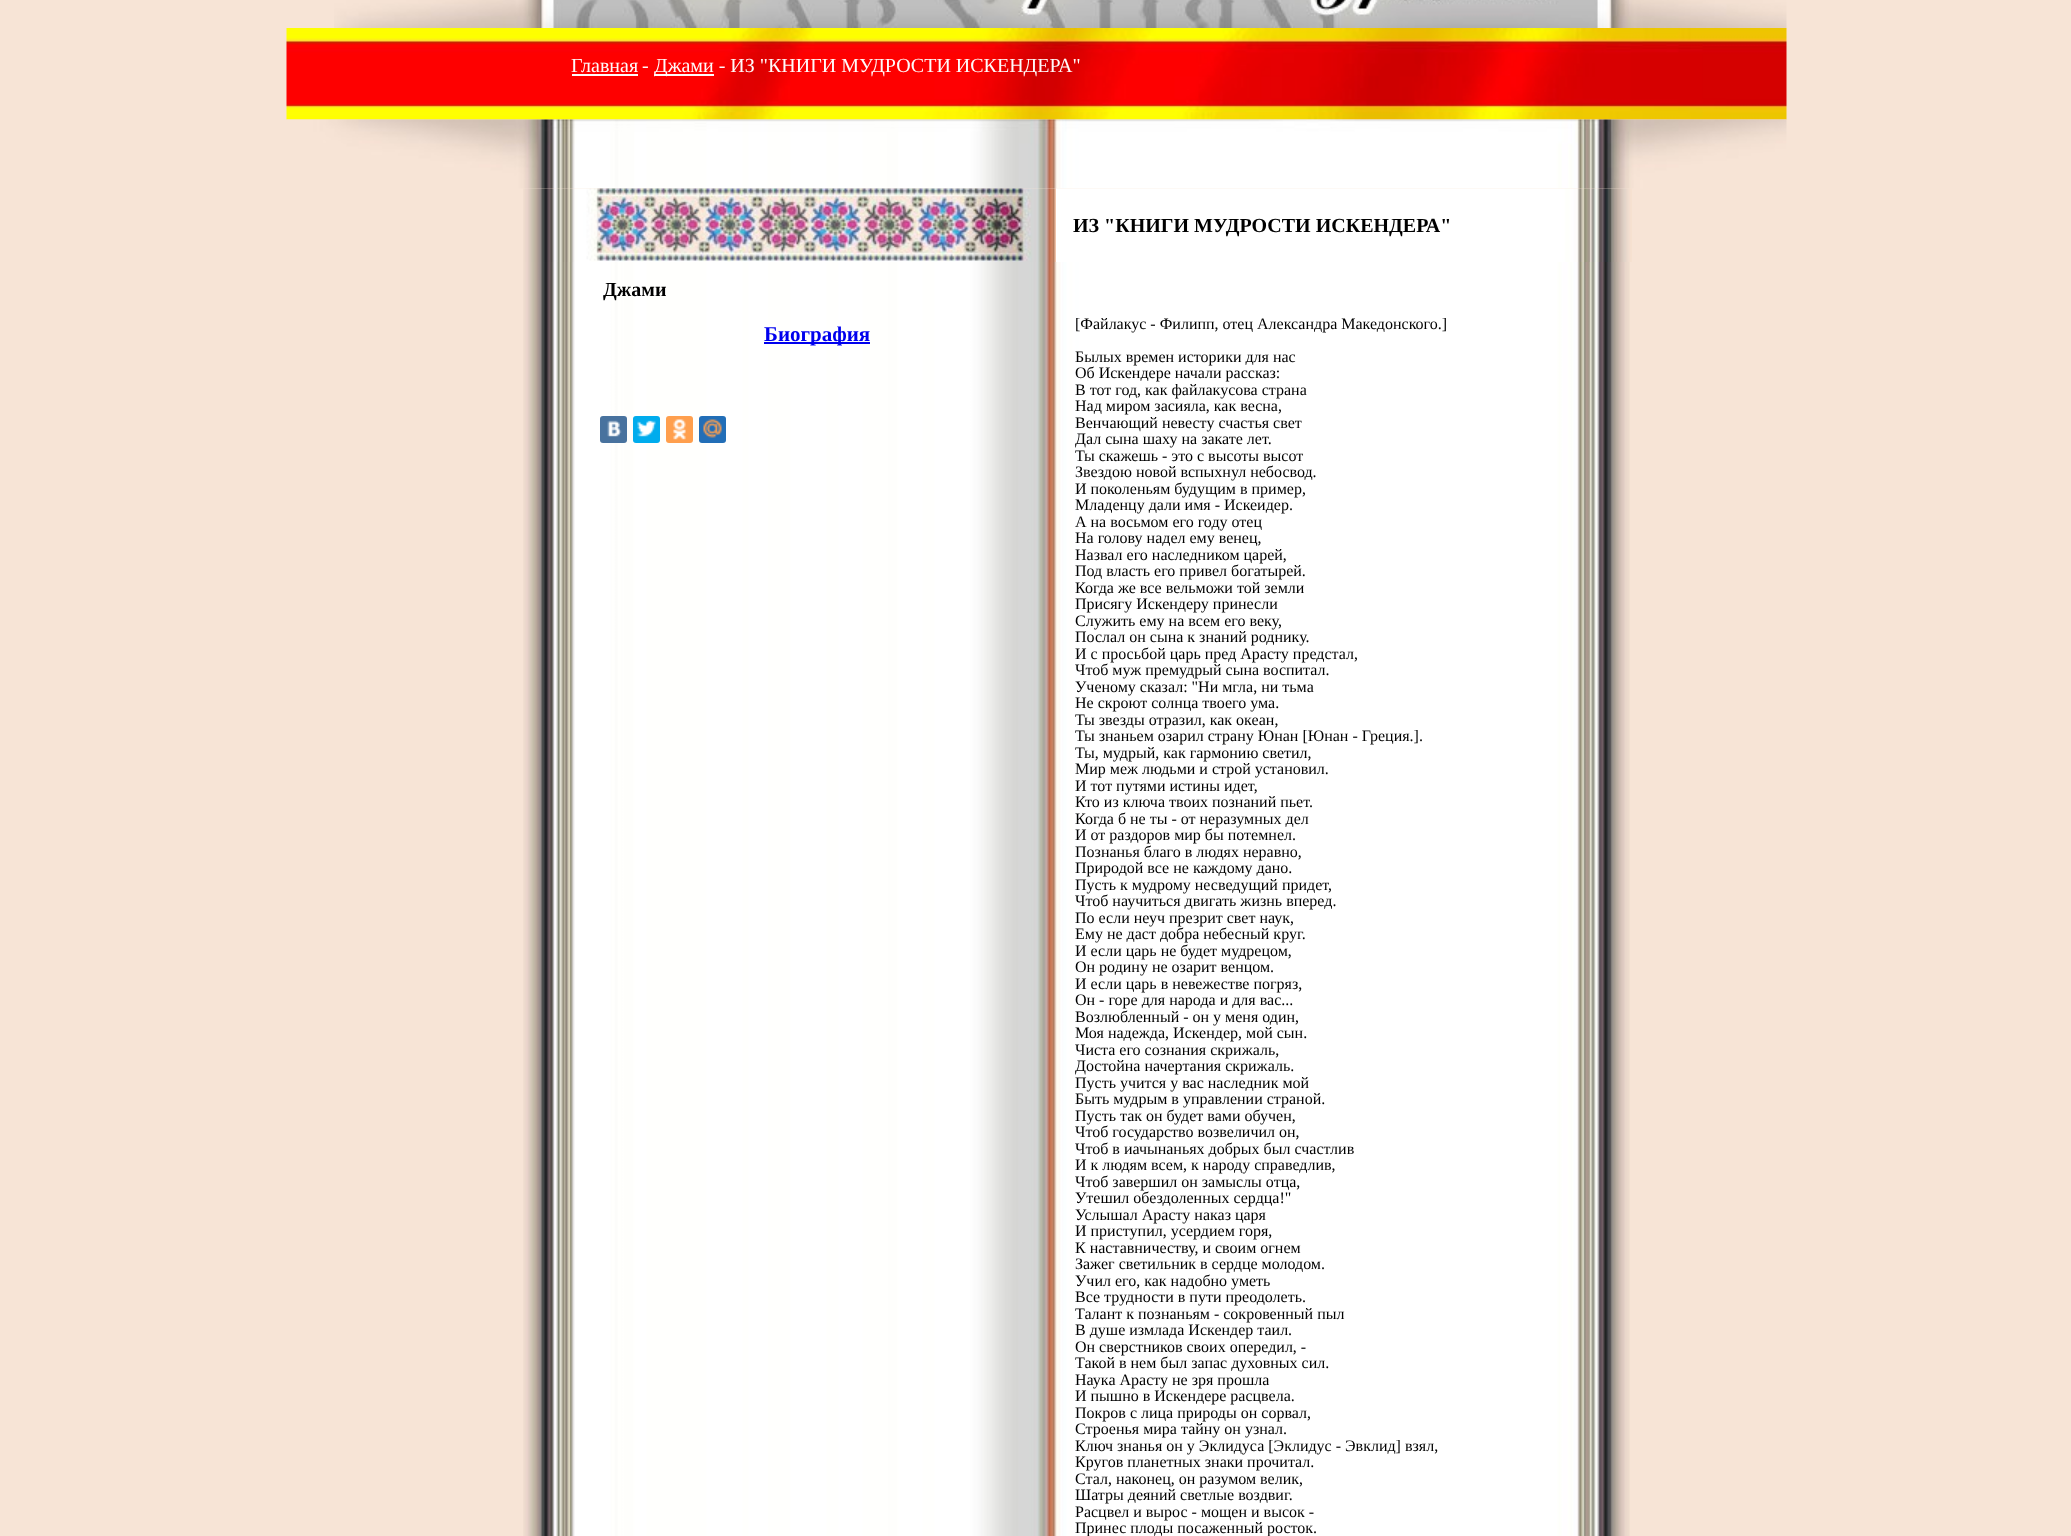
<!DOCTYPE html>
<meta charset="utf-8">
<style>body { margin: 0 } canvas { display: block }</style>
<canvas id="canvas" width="2071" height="1536"></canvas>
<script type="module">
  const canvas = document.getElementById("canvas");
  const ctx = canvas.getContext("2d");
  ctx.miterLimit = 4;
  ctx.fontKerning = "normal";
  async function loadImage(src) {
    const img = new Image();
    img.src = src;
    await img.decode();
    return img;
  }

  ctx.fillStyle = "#f7e4d6";
  ctx.fillRect(0, 0, 2071, 1536);
  ctx.drawImage(await loadImage("img1.png"), 334, 0, 1453, 28);
  ctx.drawImage(await loadImage("img2.png"), 286, 28, 1501, 92);
  ctx.font = "20px Liberation Serif";
  ctx.fillStyle = "#fffafa";
  ctx.fillText("Главная", 571, 72);
  ctx.fillRect(572, 74, 66, 2);
  ctx.fillText("-", 642, 72);
  ctx.fillRect(654, 74, 60, 2);
  ctx.fillText("Джами - ИЗ \"КНИГИ МУДРОСТИ ИСКЕНДЕРА\"", 654, 72);
  ctx.drawImage(await loadImage("img3.png"), 286, 119, 1501, 70);
  ctx.drawImage(await loadImage("img4.png"), 523, 188, 533, 74);
  ctx.drawImage(await loadImage("img5.png"), 1056, 188, 576, 74);
  ctx.font = "bold 20px Liberation Serif";
  ctx.fillStyle = "#000000";
  ctx.fillText("ИЗ \"КНИГИ МУДРОСТИ ИСКЕНДЕРА\"", 1073, 232);
  ctx.drawImage(await loadImage("img6.png"), 523, 262, 1107, 1274);
  ctx.fillText("Джами", 603, 296);
  ctx.fillStyle = "#0000ee";
  ctx.fillRect(764, 342, 106, 2);
  ctx.font = "bold 21px Liberation Serif";
  ctx.fillText("Биография", 764, 341);
  ctx.fillStyle = "#48729e";
  ctx.beginPath();
  ctx.roundRect(600, 416, 27, 27, 3);
  ctx.fill();
  ctx.drawImage(await loadImage("img7.png"), 607, 420, 15, 17);
  ctx.fillStyle = "#00aced";
  ctx.beginPath();
  ctx.roundRect(633, 416, 27, 27, 3);
  ctx.fill();
  ctx.drawImage(await loadImage("img8.png"), 637, 420, 19, 17);
  ctx.fillStyle = "#ff9f4d";
  ctx.beginPath();
  ctx.roundRect(666, 416, 27, 27, 3);
  ctx.fill();
  ctx.drawImage(await loadImage("img9.png"), 673, 419, 13, 21);
  ctx.fillStyle = "#226eb7";
  ctx.beginPath();
  ctx.roundRect(699, 416, 27, 27, 3);
  ctx.fill();
  ctx.drawImage(await loadImage("img10.png"), 703, 419, 19, 19);
  ctx.font = "16px Liberation Serif";
  ctx.fillStyle = "#000000";
  ctx.fillText("[Файлакус - Филипп, отец Александра Македонского.]", 1075, 329);
  ctx.fillText("Былых времен историки для нас", 1075, 362);
  ctx.fillText("Об Искендере начали рассказ:", 1075, 378);
  ctx.fillText("В тот год, как файлакусова страна", 1075, 395);
  ctx.fillText("Над миром засияла, как весна,", 1075, 411);
  ctx.fillText("Венчающий невесту счастья свет", 1075, 428);
  ctx.fillText("Дал сына шаху на закате лет.", 1075, 444);
  ctx.fillText("Ты скажешь - это с высоты высот", 1075, 461);
  ctx.fillText("Звездою новой вспыхнул небосвод.", 1075, 477);
  ctx.fillText("И поколеньям будущим в пример,", 1075, 494);
  ctx.fillText("Младенцу дали имя - Искеидер.", 1075, 510);
  ctx.fillText("А на восьмом его году отец", 1075, 527);
  ctx.fillText("На голову надел ему венец,", 1075, 543);
  ctx.fillText("Назвал его наследником царей,", 1075, 560);
  ctx.fillText("Под власть его привел богатырей.", 1075, 576);
  ctx.fillText("Когда же все вельможи той земли", 1075, 593);
  ctx.fillText("Присягу Искендеру принесли", 1075, 609);
  ctx.fillText("Служить ему на всем его веку,", 1075, 626);
  ctx.fillText("Послал он сына к знаний роднику.", 1075, 642);
  ctx.fillText("И с просьбой царь пред Арасту предстал,", 1075, 659);
  ctx.fillText("Чтоб муж премудрый сына воспитал.", 1075, 675);
  ctx.fillText("Ученому сказал: \"Ни мгла, ни тьма", 1075, 692);
  ctx.fillText("Не скроют солнца твоего ума.", 1075, 708);
  ctx.fillText("Ты звезды отразил, как океан,", 1075, 725);
  ctx.fillText("Ты знаньем озарил страну Юнан [Юнан - Греция.].", 1075, 741);
  ctx.fillText("Ты, мудрый, как гармонию светил,", 1075, 758);
  ctx.fillText("Мир меж людьми и строй установил.", 1075, 774);
  ctx.fillText("И тот путями истины идет,", 1075, 791);
  ctx.fillText("Кто из ключа твоих познаний пьет.", 1075, 807);
  ctx.fillText("Когда б не ты - от неразумных дел", 1075, 824);
  ctx.fillText("И от раздоров мир бы потемнел.", 1075, 840);
  ctx.fillText("Познанья благо в людях неравно,", 1075, 857);
  ctx.fillText("Природой все не каждому дано.", 1075, 873);
  ctx.fillText("Пусть к мудрому несведущий придет,", 1075, 890);
  ctx.fillText("Чтоб научиться двигать жизнь вперед.", 1075, 906);
  ctx.fillText("По если неуч презрит свет наук,", 1075, 923);
  ctx.fillText("Ему не даст добра небесный круг.", 1075, 939);
  ctx.fillText("И если царь не будет мудрецом,", 1075, 956);
  ctx.fillText("Он родину не озарит венцом.", 1075, 972);
  ctx.fillText("И если царь в невежестве погряз,", 1075, 989);
  ctx.fillText("Он - горе для народа и для вас...", 1075, 1005);
  ctx.fillText("Возлюбленный - он у меня один,", 1075, 1022);
  ctx.fillText("Моя надежда, Искендер, мой сын.", 1075, 1038);
  ctx.fillText("Чиста его сознания скрижаль,", 1075, 1055);
  ctx.fillText("Достойна начертания скрижаль.", 1075, 1071);
  ctx.fillText("Пусть учится у вас наследник мой", 1075, 1088);
  ctx.fillText("Быть мудрым в управлении страной.", 1075, 1104);
  ctx.fillText("Пусть так он будет вами обучен,", 1075, 1121);
  ctx.fillText("Чтоб государство возвеличил он,", 1075, 1137);
  ctx.fillText("Чтоб в иачынаньях добрых был счастлив", 1075, 1154);
  ctx.fillText("И к людям всем, к народу справедлив,", 1075, 1170);
  ctx.fillText("Чтоб завершил он замыслы отца,", 1075, 1187);
  ctx.fillText("Утешил обездоленных сердца!\"", 1075, 1203);
  ctx.fillText("Услышал Арасту наказ царя", 1075, 1220);
  ctx.fillText("И приступил, усердием горя,", 1075, 1236);
  ctx.fillText("К наставничеству, и своим огнем", 1075, 1253);
  ctx.fillText("Зажег светильник в сердце молодом.", 1075, 1269);
  ctx.fillText("Учил его, как надобно уметь", 1075, 1286);
  ctx.fillText("Все трудности в пути преодолеть.", 1075, 1302);
  ctx.fillText("Талант к познаньям - сокровенный пыл", 1075, 1319);
  ctx.fillText("В душе измлада Искендер таил.", 1075, 1335);
  ctx.fillText("Он сверстников своих опередил, -", 1075, 1352);
  ctx.fillText("Такой в нем был запас духовных сил.", 1075, 1368);
  ctx.fillText("Наука Арасту не зря прошла", 1075, 1385);
  ctx.fillText("И пышно в Искендере расцвела.", 1075, 1401);
  ctx.fillText("Покров с лица природы он сорвал,", 1075, 1418);
  ctx.fillText("Строенья мира тайну он узнал.", 1075, 1434);
  ctx.fillText("Ключ знанья он у Эклидуса [Эклидус - Эвклид] взял,", 1075, 1451);
  ctx.fillText("Кругов планетных знаки прочитал.", 1075, 1467);
  ctx.fillText("Стал, наконец, он разумом велик,", 1075, 1484);
  ctx.fillText("Шатры деяний светлые воздвиг.", 1075, 1500);
  ctx.fillText("Расцвел и вырос - мощен и высок -", 1075, 1517);
  ctx.fillText("Принес плоды посаженный росток.", 1075, 1533);
</script>
